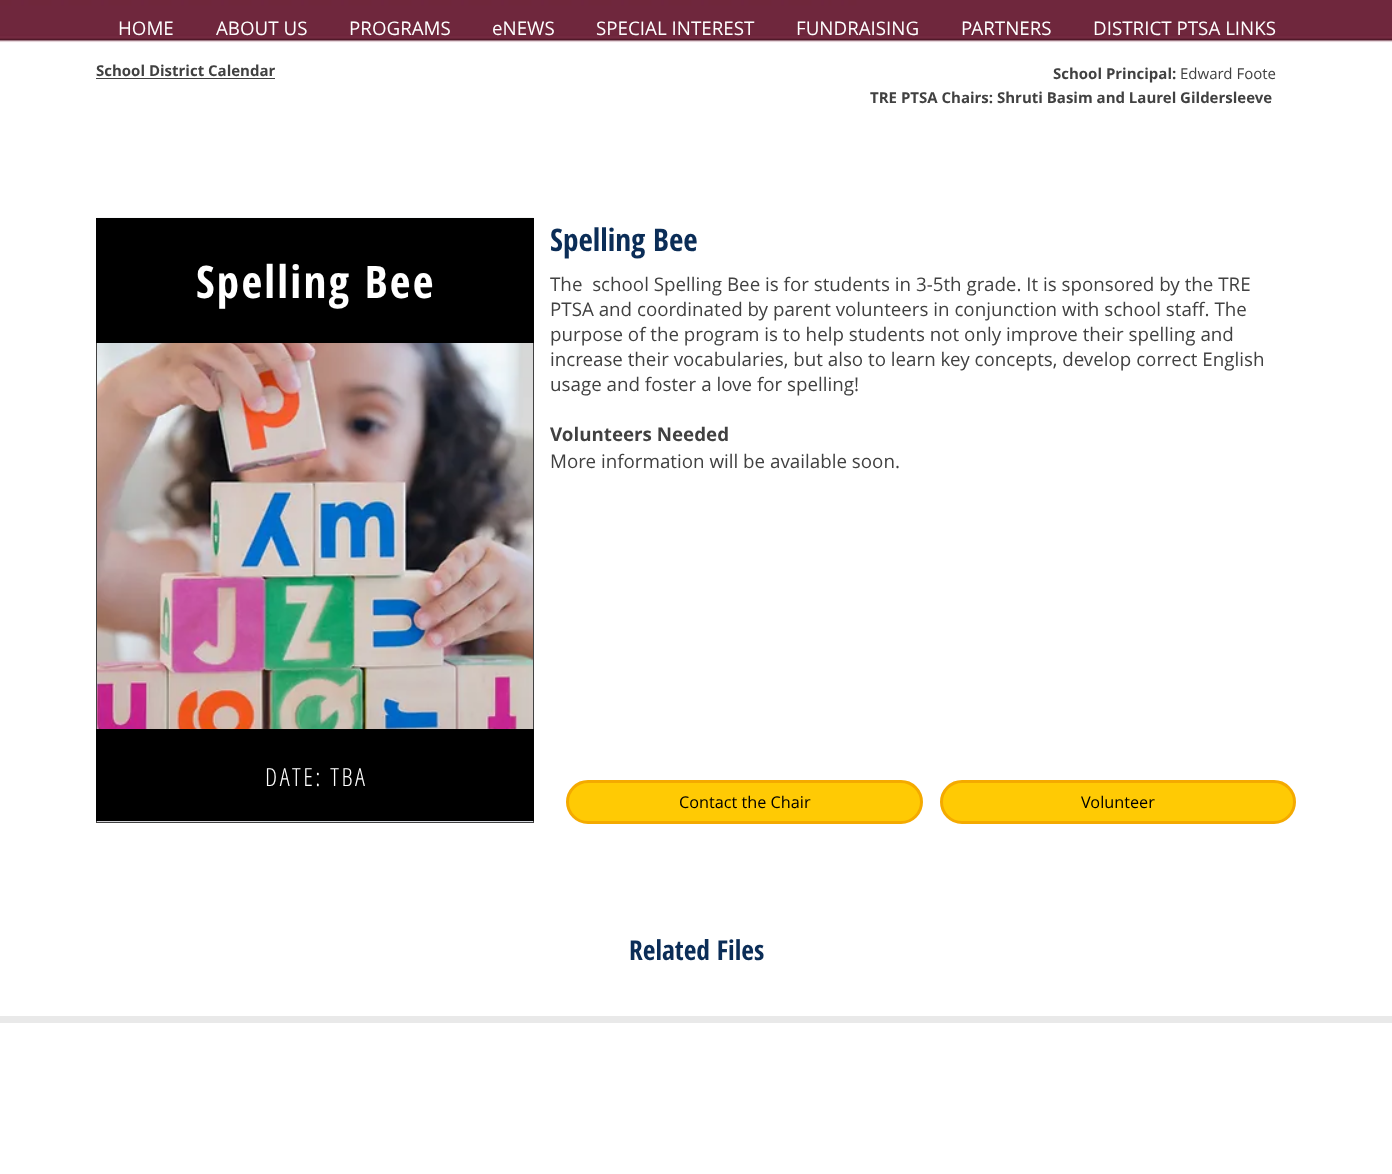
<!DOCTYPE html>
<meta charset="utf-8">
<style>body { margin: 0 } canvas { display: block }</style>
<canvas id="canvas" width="1392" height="1174"></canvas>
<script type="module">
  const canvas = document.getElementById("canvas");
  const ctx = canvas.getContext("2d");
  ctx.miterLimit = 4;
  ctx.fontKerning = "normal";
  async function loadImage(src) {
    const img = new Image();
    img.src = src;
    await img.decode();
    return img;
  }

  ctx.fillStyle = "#ffffff";
  ctx.fillRect(0, 0, 1392, 1174);
  ctx.drawImage(await loadImage("img1.png"), 0, 0, 1392, 43);
  ctx.font = "18.75px Open Sans";
  ctx.fillText("HOME", 118, 35);
  ctx.fillText("ABOUT US", 216, 35);
  ctx.fillText("PROGRAMS", 349, 35);
  ctx.fillText("eNEWS", 492, 35);
  ctx.fillText("SPECIAL INTEREST", 596, 35);
  ctx.fillText("FUNDRAISING", 796, 35);
  ctx.fillText("PARTNERS", 961, 35);
  ctx.fillText("DISTRICT PTSA LINKS", 1093, 35);
  ctx.font = "bold 15px Open Sans";
  ctx.fillStyle = "#414141";
  ctx.fillText("School District Calendar", 96, 76);
  ctx.fillRect(96, 78, 179, 1);
  ctx.fillText("School Principal:", 1053, 79);
  ctx.font = "15px Open Sans";
  ctx.fillText("Edward Foote", 1180, 79);
  ctx.font = "bold 15px Open Sans";
  ctx.fillText("TRE PTSA Chairs: Shruti Basim and Laurel Gildersleeve", 870, 103);
  ctx.drawImage(await loadImage("img2.png"), 96, 217, 438, 605);
  ctx.strokeStyle = "#414141";
  ctx.strokeRect(96.5, 218.5, 437, 604);
  ctx.fillStyle = "#000000";
  ctx.fillRect(96, 218, 438, 125);
  ctx.letterSpacing = "2.25px";
  ctx.font = "bold 45px Open Sans Condensed";
  ctx.fillStyle = "#ffffff";
  ctx.fillText("Spelling Bee", 196, 298);
  ctx.letterSpacing = "0px";
  ctx.font = "bold 31.25px Open Sans Condensed";
  ctx.fillStyle = "#0b2d57";
  ctx.fillText("Spelling Bee", 550, 251);
  ctx.font = "18.75px Open Sans";
  ctx.fillStyle = "#414141";
  ctx.fillText("The  school Spelling Bee is for students in 3-5th grade. It is sponsored by the TRE", 550, 291);
  ctx.fillText("PTSA and coordinated by parent volunteers in conjunction with school staff. The", 550, 316);
  ctx.fillText("purpose of the program is to help students not only improve their spelling and", 550, 341);
  ctx.fillText("increase their vocabularies, but also to learn key concepts, develop correct English", 550, 366);
  ctx.fillText("usage and foster a love for spelling!", 550, 391);
  ctx.font = "bold 18.75px Open Sans";
  ctx.fillText("Volunteers Needed", 550, 441);
  ctx.font = "18.75px Open Sans";
  ctx.fillText("More information will be available soon.", 550, 468);
  ctx.fillStyle = "#000000";
  ctx.fillRect(96, 729, 438, 92);
  ctx.letterSpacing = "2.5px";
  ctx.font = "300 25px Open Sans Condensed";
  ctx.fillStyle = "#ffffff";
  ctx.fillText("DATE: TBA", 265, 786);
  ctx.fillStyle = "#ffca04";
  ctx.beginPath();
  ctx.roundRect(567.5, 781.5, 354, 41, 20.5);
  ctx.fill();
  ctx.strokeStyle = "#f4aa00";
  ctx.lineWidth = 3;
  ctx.stroke();
  ctx.letterSpacing = "0px";
  ctx.font = "16.25px Open Sans";
  ctx.fillStyle = "#000000";
  ctx.fillText("Contact the Chair", 679, 808);
  ctx.fillStyle = "#ffca04";
  ctx.beginPath();
  ctx.roundRect(941.5, 781.5, 353, 41, 20.5);
  ctx.fill();
  ctx.stroke();
  ctx.fillStyle = "#000000";
  ctx.fillText("Volunteer", 1081, 808);
  ctx.font = "bold 27.5px Open Sans Condensed";
  ctx.fillStyle = "#0b2d57";
  ctx.fillText("Related Files", 629, 960);
  ctx.fillStyle = "#e9e9e9";
  ctx.fillRect(0, 1016, 1392, 7);
</script>
